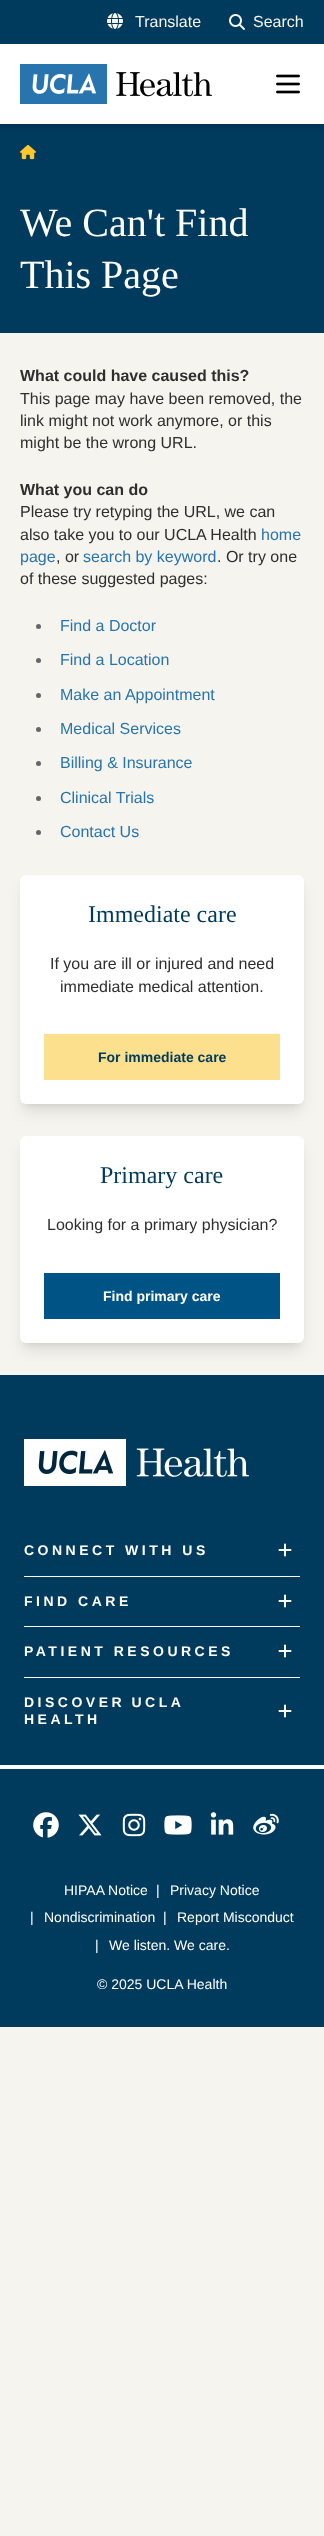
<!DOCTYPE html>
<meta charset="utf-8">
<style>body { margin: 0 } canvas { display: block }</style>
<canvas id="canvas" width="324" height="2536"></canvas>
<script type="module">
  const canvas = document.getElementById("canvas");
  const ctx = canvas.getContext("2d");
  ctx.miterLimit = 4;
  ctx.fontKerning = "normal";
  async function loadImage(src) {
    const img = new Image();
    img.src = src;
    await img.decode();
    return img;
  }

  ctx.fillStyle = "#f6f4ee";
  ctx.fillRect(0, 0, 324, 2536);
  ctx.fillStyle = "#003a5c";
  ctx.fillRect(0, 0, 324, 44);
  ctx.drawImage(await loadImage("img1.png"), 107, 13, 16, 16);
  ctx.font = "16px Liberation Sans";
  ctx.fillStyle = "#f6f4ee";
  ctx.fillText("Translate", 135, 27);
  ctx.drawImage(await loadImage("img2.png"), 229, 14, 16, 16);
  ctx.fillText("Search", 253, 27);
  ctx.fillStyle = "#003a5c";
  ctx.fillRect(0, 124, 324, 209);
  ctx.fillStyle = "rgba(0, 0, 0, 0.1)";
  ctx.filter = "blur(2px)";
  ctx.beginPath();
  ctx.rect(2, 48, 320, 76);
  ctx.fill();
  ctx.filter = "none";
  ctx.filter = "blur(3px)";
  ctx.beginPath();
  ctx.rect(1, 49, 322, 78);
  ctx.fill();
  ctx.filter = "none";
  ctx.fillStyle = "#ffffff";
  ctx.fillRect(0, 44, 324, 80);
  ctx.drawImage(await loadImage("img3.png"), 20, 64, 192, 40);
  ctx.drawImage(await loadImage("img4.png"), 276, 74, 24, 20);
  ctx.drawImage(await loadImage("img5.png"), 20, 144, 16, 16);
  ctx.font = "40px Liberation Serif";
  ctx.fillText("We Can't Find", 20, 236);
  ctx.fillText("This Page", 20, 288);
  ctx.font = "bold 16px Liberation Sans";
  ctx.fillStyle = "#2e2e2e";
  ctx.fillText("What could have caused this?", 20, 381);
  ctx.font = "16px Liberation Sans";
  ctx.fillText("This page may have been removed, the", 20, 404);
  ctx.fillText("link might not work anymore, or this", 20, 426);
  ctx.fillText("might be the wrong URL.", 20, 448);
  ctx.font = "bold 16px Liberation Sans";
  ctx.fillText("What you can do", 20, 495);
  ctx.font = "16px Liberation Sans";
  ctx.fillText("Please try retyping the URL, we can", 20, 517);
  ctx.fillText("also take you to our UCLA Health", 20, 540);
  ctx.fillStyle = "#2874af";
  ctx.fillText("home", 261, 540);
  ctx.fillText("page", 20, 562);
  ctx.fillStyle = "#2e2e2e";
  ctx.fillText(", or", 56, 562);
  ctx.fillStyle = "#2874af";
  ctx.fillText("search by keyword", 83, 562);
  ctx.fillStyle = "#2e2e2e";
  ctx.fillText(". Or try one", 217, 562);
  ctx.fillText("of these suggested pages:", 20, 584);
  ctx.fillStyle = "#666666";
  ctx.beginPath();
  ctx.arc(38.5, 626.5, 2.5, 0, Math.PI * 2);
  ctx.fill();
  ctx.fillStyle = "#2874af";
  ctx.fillText("Find a Doctor", 60, 631);
  ctx.fillStyle = "#666666";
  ctx.beginPath();
  ctx.arc(38.5, 660.5, 2.5, 0, Math.PI * 2);
  ctx.fill();
  ctx.fillStyle = "#2874af";
  ctx.fillText("Find a Location", 60, 665);
  ctx.fillStyle = "#666666";
  ctx.beginPath();
  ctx.arc(38.5, 695.5, 2.5, 0, Math.PI * 2);
  ctx.fill();
  ctx.fillStyle = "#2874af";
  ctx.fillText("Make an Appointment", 60, 700);
  ctx.fillStyle = "#666666";
  ctx.beginPath();
  ctx.arc(38.5, 729.5, 2.5, 0, Math.PI * 2);
  ctx.fill();
  ctx.fillStyle = "#2874af";
  ctx.fillText("Medical Services", 60, 734);
  ctx.fillStyle = "#666666";
  ctx.beginPath();
  ctx.arc(38.5, 763.5, 2.5, 0, Math.PI * 2);
  ctx.fill();
  ctx.fillStyle = "#2874af";
  ctx.fillText("Billing & Insurance", 60, 768);
  ctx.fillStyle = "#666666";
  ctx.beginPath();
  ctx.arc(38.5, 798.5, 2.5, 0, Math.PI * 2);
  ctx.fill();
  ctx.fillStyle = "#2874af";
  ctx.fillText("Clinical Trials", 60, 803);
  ctx.fillStyle = "#666666";
  ctx.beginPath();
  ctx.arc(38.5, 832.5, 2.5, 0, Math.PI * 2);
  ctx.fill();
  ctx.fillStyle = "#2874af";
  ctx.fillText("Contact Us", 60, 837);
  ctx.fillStyle = "rgba(0, 0, 0, 0.1)";
  ctx.filter = "blur(3px)";
  ctx.beginPath();
  ctx.roundRect(24, 883, 276, 221, 2);
  ctx.fill();
  ctx.filter = "none";
  ctx.filter = "blur(7.5px)";
  ctx.beginPath();
  ctx.roundRect(23, 888, 278, 223, 3);
  ctx.fill();
  ctx.filter = "none";
  ctx.fillStyle = "#ffffff";
  ctx.beginPath();
  ctx.roundRect(20, 875, 284, 229, 6);
  ctx.fill();
  ctx.font = "24px Liberation Serif";
  ctx.fillStyle = "#003a5c";
  ctx.fillText("Immediate care", 88, 922);
  ctx.font = "16px Liberation Sans";
  ctx.fillStyle = "#2e2e2e";
  ctx.fillText("If you are ill or injured and need", 50, 969);
  ctx.fillText("immediate medical attention.", 60, 992);
  ctx.fillStyle = "#fce08d";
  ctx.fillRect(44, 1034, 236, 46);
  ctx.font = "bold 14px Liberation Sans";
  ctx.fillStyle = "#003a5c";
  ctx.fillText("For immediate care", 98, 1062);
  ctx.fillStyle = "rgba(0, 0, 0, 0.1)";
  ctx.filter = "blur(3px)";
  ctx.beginPath();
  ctx.roundRect(24, 1144, 276, 199, 2);
  ctx.fill();
  ctx.filter = "none";
  ctx.filter = "blur(7.5px)";
  ctx.beginPath();
  ctx.roundRect(23, 1149, 278, 201, 3);
  ctx.fill();
  ctx.filter = "none";
  ctx.fillStyle = "#ffffff";
  ctx.beginPath();
  ctx.roundRect(20, 1136, 284, 207, 6);
  ctx.fill();
  ctx.font = "24px Liberation Serif";
  ctx.fillStyle = "#003a5c";
  ctx.fillText("Primary care", 100, 1183);
  ctx.font = "16px Liberation Sans";
  ctx.fillStyle = "#2e2e2e";
  ctx.fillText("Looking for a primary physician?", 47, 1230);
  ctx.fillStyle = "#005485";
  ctx.fillRect(44, 1273, 236, 46);
  ctx.font = "bold 14px Liberation Sans";
  ctx.fillStyle = "#ffffff";
  ctx.fillText("Find primary care", 103, 1301);
  ctx.fillStyle = "#003a5c";
  ctx.fillRect(0, 1375, 324, 652);
  ctx.drawImage(await loadImage("img6.png"), 24, 1439, 225, 47);
  ctx.letterSpacing = "3.5px";
  ctx.fillStyle = "#ffffff";
  ctx.fillText("CONNECT WITH US", 24, 1555);
  ctx.drawImage(await loadImage("img7.png"), 278, 1543, 14, 14);
  ctx.fillRect(24, 1576, 276, 1);
  ctx.fillText("FIND CARE", 24, 1606);
  ctx.drawImage(await loadImage("img7.png"), 278, 1594, 14, 14);
  ctx.fillRect(24, 1626, 276, 1);
  ctx.fillText("PATIENT RESOURCES", 24, 1656);
  ctx.drawImage(await loadImage("img7.png"), 278, 1644, 14, 14);
  ctx.fillRect(24, 1677, 276, 1);
  ctx.wordSpacing = "-1px";
  ctx.fillText("DISCOVER UCLA", 24, 1707);
  ctx.wordSpacing = "0px";
  ctx.fillText("HEALTH", 24, 1724);
  ctx.drawImage(await loadImage("img7.png"), 278, 1704, 14, 14);
  ctx.fillRect(0, 1765, 324, 4);
  ctx.drawImage(await loadImage("img8.png"), 33, 1812, 26, 26);
  ctx.drawImage(await loadImage("img9.png"), 78, 1814, 24, 22);
  ctx.drawImage(await loadImage("img10.png"), 122, 1813, 24, 24);
  ctx.drawImage(await loadImage("img11.png"), 164, 1815, 28, 20);
  ctx.drawImage(await loadImage("img12.png"), 210, 1812, 24, 23);
  ctx.drawImage(await loadImage("img13.png"), 253, 1813, 26, 22);
  ctx.letterSpacing = "0px";
  ctx.font = "14px Liberation Sans";
  ctx.fillText("HIPAA Notice", 64, 1895);
  ctx.fillText("|", 156, 1895);
  ctx.fillText("Privacy Notice", 170, 1895);
  ctx.fillText("|", 30, 1922);
  ctx.fillText("Nondiscrimination", 44, 1922);
  ctx.fillText("|", 163, 1922);
  ctx.fillText("Report Misconduct", 177, 1922);
  ctx.fillText("|", 95, 1950);
  ctx.fillText("We listen. We care.", 109, 1950);
  ctx.fillText("© 2025 UCLA Health", 97, 1989);
</script>
